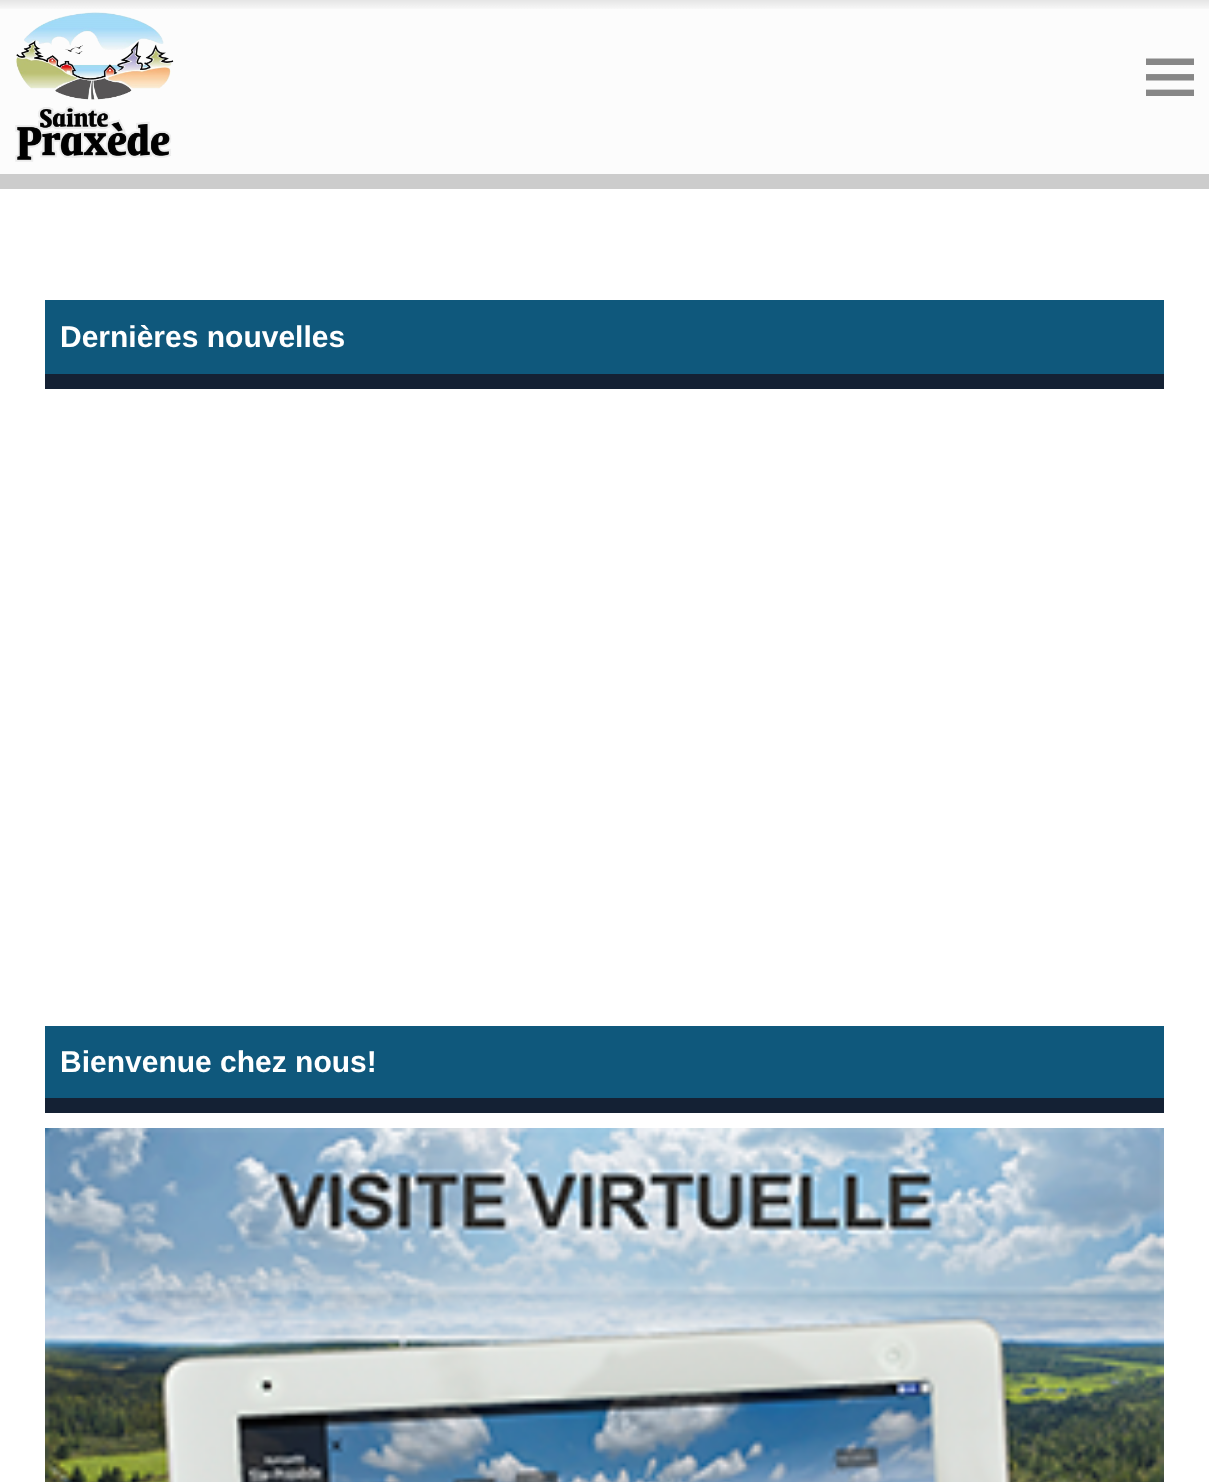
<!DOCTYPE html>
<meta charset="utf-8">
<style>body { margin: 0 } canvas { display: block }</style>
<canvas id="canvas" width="1209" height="1482"></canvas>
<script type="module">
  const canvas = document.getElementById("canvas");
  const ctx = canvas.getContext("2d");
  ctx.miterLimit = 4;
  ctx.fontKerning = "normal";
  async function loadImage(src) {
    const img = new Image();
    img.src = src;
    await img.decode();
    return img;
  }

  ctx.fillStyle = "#ffffff";
  ctx.fillRect(0, 0, 1209, 1482);
  ctx.fillStyle = "#fcfcfc";
  ctx.fillRect(0, 0, 1209, 174);
  ctx.drawImage(await loadImage("img1.png"), 0, 0, 1209, 9);
  ctx.fillStyle = "#cccccc";
  ctx.fillRect(0, 174, 1209, 15);
  ctx.drawImage(await loadImage("img2.png"), 15, 12, 159, 150);
  ctx.drawImage(await loadImage("img3.png"), 1146, 58, 48, 38);
  ctx.fillStyle = "#0f587c";
  ctx.fillRect(45, 300, 1119, 74);
  ctx.fillStyle = "#142134";
  ctx.fillRect(45, 374, 1119, 15);
  ctx.font = "bold 30px Liberation Sans";
  ctx.fillStyle = "#ffffff";
  ctx.fillText("Dernières nouvelles", 60, 347);
  ctx.fillStyle = "#0f587c";
  ctx.fillRect(45, 1026, 1119, 72);
  ctx.fillStyle = "#142134";
  ctx.fillRect(45, 1098, 1119, 15);
  ctx.fillStyle = "#ffffff";
  ctx.fillText("Bienvenue chez nous!", 60, 1072);
  ctx.drawImage(await loadImage("img4.png"), 45, 1128, 1119, 354);
</script>
